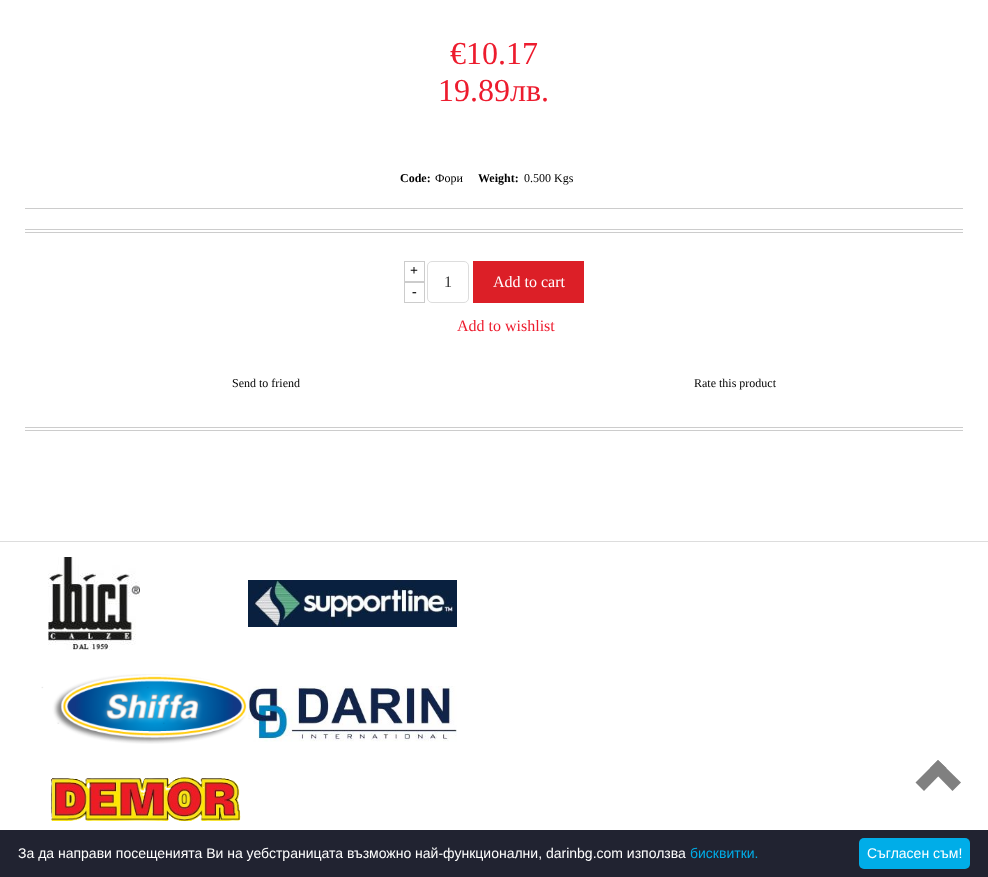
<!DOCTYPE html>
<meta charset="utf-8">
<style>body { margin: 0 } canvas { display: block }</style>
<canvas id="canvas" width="988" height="877"></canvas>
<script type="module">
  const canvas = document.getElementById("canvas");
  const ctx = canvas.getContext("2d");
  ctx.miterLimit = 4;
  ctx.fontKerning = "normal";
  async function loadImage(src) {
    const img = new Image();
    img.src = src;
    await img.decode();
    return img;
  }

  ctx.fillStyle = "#ffffff";
  ctx.fillRect(0, 0, 988, 877);
  ctx.font = "32px Liberation Serif";
  ctx.fillStyle = "#ed1c2e";
  ctx.fillText("€10.17", 450, 64);
  ctx.fillText("19.89лв.", 438, 101);
  ctx.font = "bold 12px Liberation Serif";
  ctx.fillStyle = "#000000";
  ctx.fillText("Code:", 400, 182);
  ctx.font = "12px Liberation Serif";
  ctx.fillText("Фори", 435, 182);
  ctx.font = "bold 12px Liberation Serif";
  ctx.fillText("Weight:", 478, 182);
  ctx.font = "12px Liberation Serif";
  ctx.fillText("0.500 Kgs", 524, 182);
  ctx.fillStyle = "#cccccc";
  ctx.fillRect(25, 208, 938, 1);
  ctx.fillRect(25, 229, 938, 1);
  ctx.fillRect(25, 430, 938, 1);
  ctx.fillRect(25, 232, 938, 1);
  ctx.strokeStyle = "#cccccc";
  ctx.strokeRect(404.5, 261.5, 20, 20);
  ctx.font = "bold 14px Liberation Serif";
  ctx.fillStyle = "#000000";
  ctx.fillText("+", 410, 275);
  ctx.strokeRect(404.5, 282.5, 20, 20);
  ctx.fillText("-", 412, 296);
  ctx.beginPath();
  ctx.roundRect(427.5, 261.5, 41, 41, 4.5);
  ctx.strokeStyle = "#dddddd";
  ctx.stroke();
  ctx.font = "16px Liberation Serif";
  ctx.fillStyle = "#333333";
  ctx.fillText("1", 444, 287);
  ctx.fillStyle = "#dc1f27";
  ctx.fillRect(473, 261, 111, 42);
  ctx.fillStyle = "#ffffff";
  ctx.fillText("Add to cart", 493, 287);
  ctx.fillStyle = "#ed1c2e";
  ctx.fillText("Add to wishlist", 457, 331);
  ctx.font = "12px Liberation Serif";
  ctx.fillStyle = "#000000";
  ctx.fillText("Send to friend", 232, 387);
  ctx.fillText("Rate this product", 694, 387);
  ctx.fillStyle = "#cccccc";
  ctx.fillRect(25, 427, 938, 1);
  ctx.fillStyle = "#dddddd";
  ctx.fillRect(0, 541, 988, 1);
  ctx.drawImage(await loadImage("img1.png"), 48, 557, 92, 93);
  ctx.drawImage(await loadImage("img2.png"), 248, 580, 209, 47);
  ctx.drawImage(await loadImage("img3.png"), 41, 674, 206, 70);
  ctx.drawImage(await loadImage("img4.png"), 248, 686, 209, 56);
  ctx.drawImage(await loadImage("img5.png"), 51, 777, 190, 45);
  ctx.fillStyle = "#808080";
  ctx.beginPath();
  ctx.moveTo(924, 791);
  ctx.lineTo(915.5, 782.5);
  ctx.lineTo(938, 760);
  ctx.lineTo(946.5, 768);
  ctx.closePath();
  ctx.fill();
  ctx.beginPath();
  ctx.moveTo(952.5, 791);
  ctx.lineTo(930, 768);
  ctx.lineTo(938, 760);
  ctx.lineTo(961, 782.5);
  ctx.closePath();
  ctx.fill();
  ctx.fillStyle = "#212331";
  ctx.fillRect(0, 830, 988, 47);
  ctx.font = "14px Liberation Sans";
  ctx.fillStyle = "#ffffff";
  ctx.fillText("За да направи посещенията Ви на уебстраницата възможно най-функционални, darinbg.com използва", 18, 858);
  ctx.fillStyle = "#00ade8";
  ctx.fillText("бисквитки.", 690, 858);
  ctx.beginPath();
  ctx.roundRect(859, 838, 111, 31, 5);
  ctx.fill();
  ctx.fillStyle = "#ffffff";
  ctx.fillText("Съгласен съм!", 867, 858);
</script>
